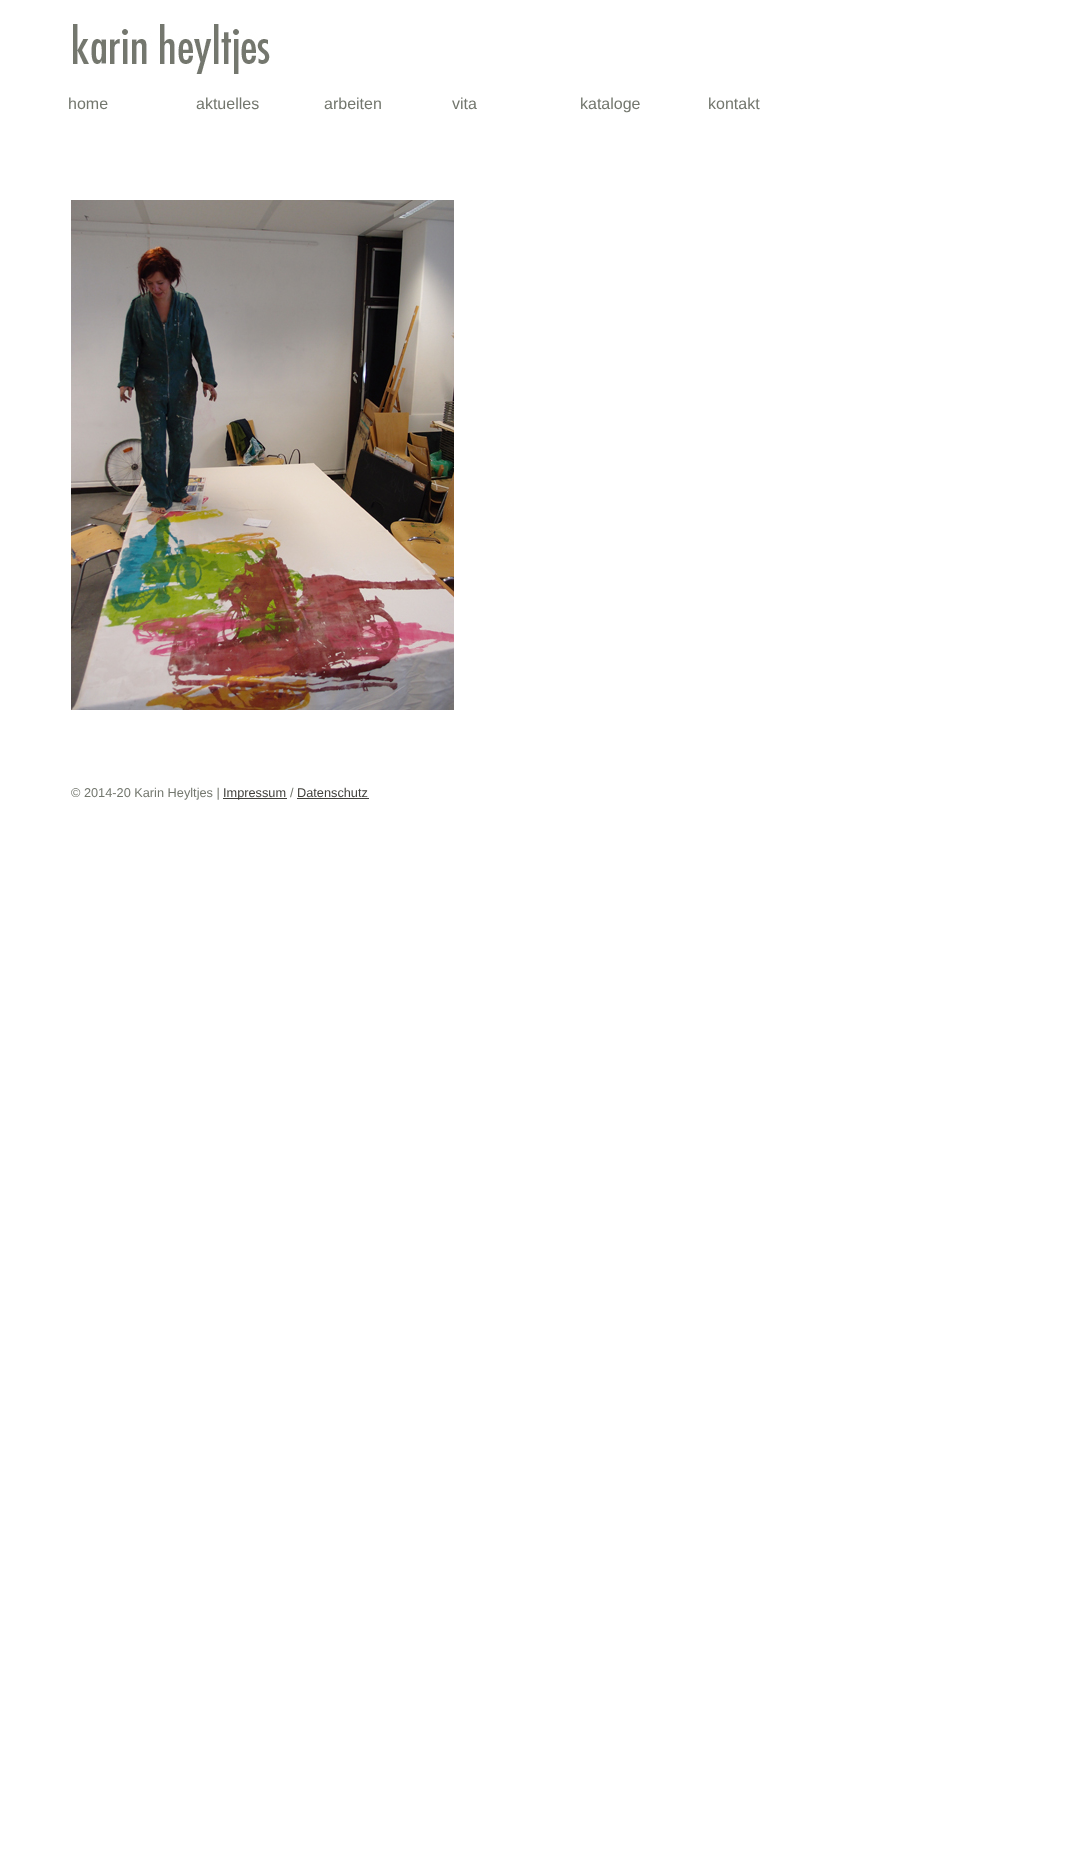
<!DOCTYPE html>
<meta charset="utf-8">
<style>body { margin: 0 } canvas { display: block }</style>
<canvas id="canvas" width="1071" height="1863"></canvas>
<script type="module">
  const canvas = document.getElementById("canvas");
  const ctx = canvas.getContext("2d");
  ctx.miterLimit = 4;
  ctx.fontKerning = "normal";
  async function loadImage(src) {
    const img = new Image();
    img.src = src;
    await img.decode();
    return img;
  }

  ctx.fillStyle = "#ffffff";
  ctx.fillRect(0, 0, 1071, 1863);
  ctx.drawImage(await loadImage("img1.png"), 73, 24, 197, 50);
  ctx.font = "16px Liberation Sans";
  ctx.fillStyle = "#73776e";
  ctx.fillText("home", 68, 109);
  ctx.fillText("aktuelles", 196, 109);
  ctx.fillText("arbeiten", 324, 109);
  ctx.fillText("vita", 452, 109);
  ctx.fillText("kataloge", 580, 109);
  ctx.fillText("kontakt", 708, 109);
  ctx.drawImage(await loadImage("img2.png"), 71, 200, 383, 510);
  ctx.font = "12.75px Liberation Sans";
  ctx.fillText("© 2014-20 Karin Heyltjes |", 71, 797);
  ctx.fillStyle = "#42413c";
  ctx.fillRect(223, 798, 64, 1);
  ctx.fillText("Impressum", 223, 797);
  ctx.fillStyle = "#73776e";
  ctx.fillText("/", 290, 797);
  ctx.fillStyle = "#42413c";
  ctx.fillText("Datenschutz", 297, 797);
  ctx.fillRect(297, 798, 72, 1);
</script>
